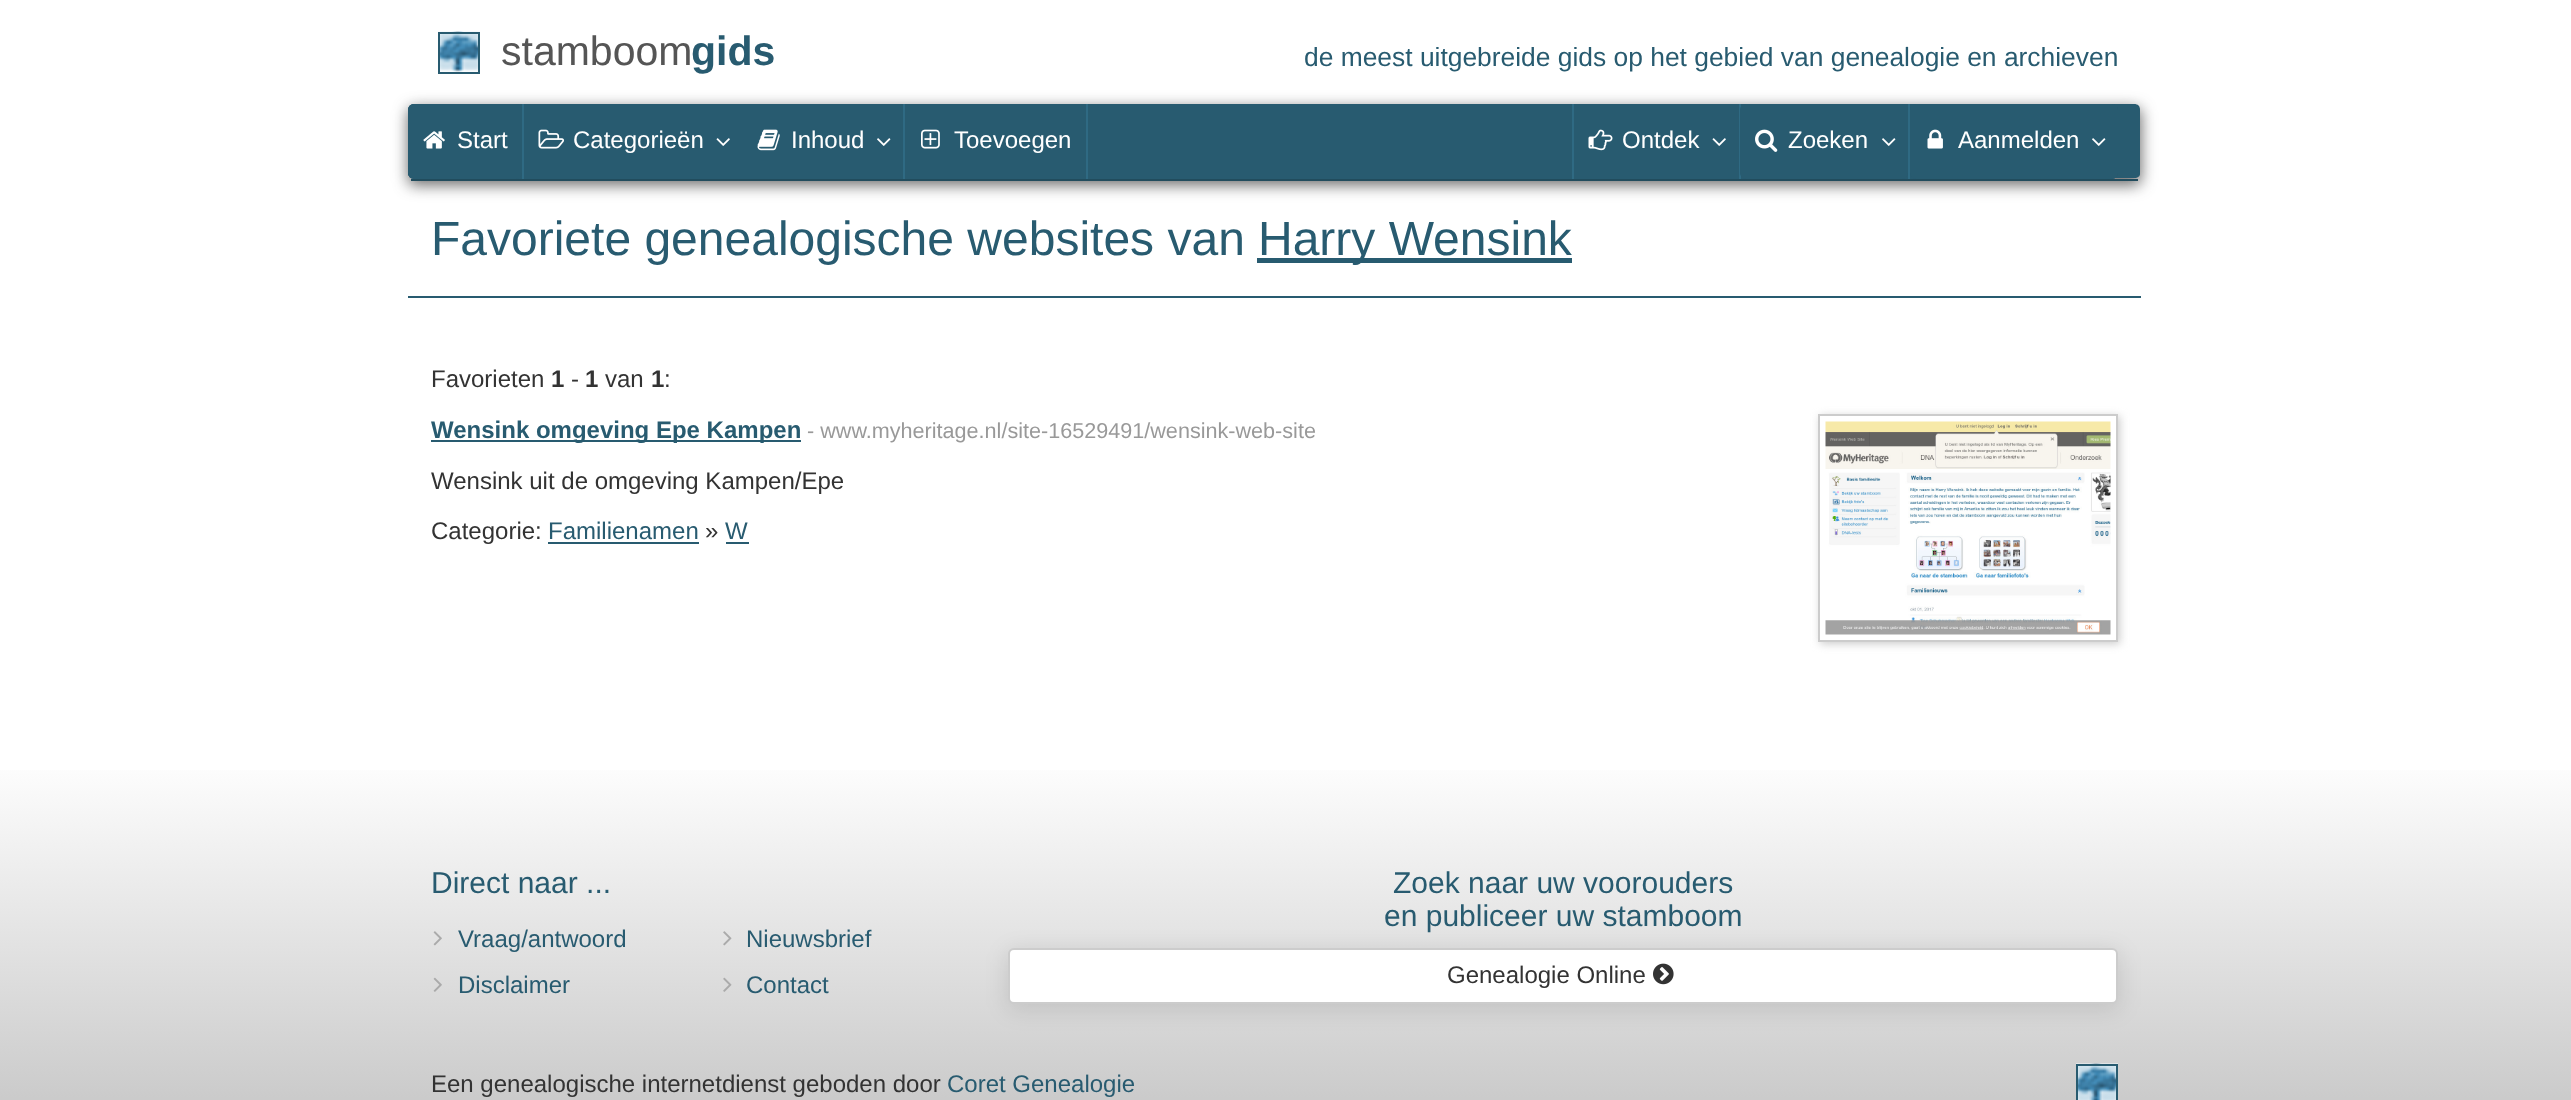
<!DOCTYPE html>
<meta charset="utf-8">
<style>body { margin: 0 } canvas { display: block }</style>
<canvas id="canvas" width="2571" height="1100"></canvas>
<script type="module">
  const canvas = document.getElementById("canvas");
  const ctx = canvas.getContext("2d");
  ctx.miterLimit = 4;
  ctx.fontKerning = "normal";
  async function loadImage(src) {
    const img = new Image();
    img.src = src;
    await img.decode();
    return img;
  }
  let gradient;

  ctx.fillStyle = "#ffffff";
  ctx.fillRect(0, 0, 2571, 1100);
  ctx.drawImage(await loadImage("img1.png"), 438, 31, 42, 41);
  ctx.strokeStyle = "#285b70";
  ctx.lineWidth = 2;
  ctx.strokeRect(439, 33, 40, 40);
  ctx.font = "41px Liberation Sans";
  ctx.fillStyle = "#555555";
  ctx.fillText("stamboom", 501, 65);
  ctx.font = "bold 41px Liberation Sans";
  ctx.fillStyle = "#285b70";
  ctx.fillText("gids", 691, 65);
  ctx.font = "26.4px Liberation Sans";
  ctx.fillText("de meest uitgebreide gids op het gebied van genealogie en archieven", 1304, 66);
  ctx.fillStyle = "rgba(50, 50, 50, 0.73)";
  ctx.filter = "blur(7.5px)";
  ctx.beginPath();
  ctx.roundRect(408, 108, 1733, 77, 6);
  ctx.fill();
  ctx.filter = "none";
  ctx.fillStyle = "#285b70";
  ctx.beginPath();
  ctx.moveTo(414, 104);
  ctx.lineTo(2134, 104);
  ctx.bezierCurveTo(2138, 104, 2140, 106, 2140, 110);
  ctx.lineTo(2140, 174);
  ctx.bezierCurveTo(2140, 176, 2138, 178, 2134, 178);
  ctx.lineTo(414, 178);
  ctx.bezierCurveTo(411, 178, 408, 176, 408, 174);
  ctx.lineTo(408, 110);
  ctx.bezierCurveTo(408, 106, 411, 104, 414, 104);
  ctx.closePath();
  ctx.fill();
  ctx.fillStyle = "#214c5d";
  ctx.fillRect(411, 179, 1727, 2);
  ctx.fillStyle = "#285b70";
  ctx.beginPath();
  ctx.roundRect(408, 104, 1710, 75, 6);
  ctx.fill();
  ctx.beginPath();
  ctx.roundRect(408, 104, 114, 75, 6);
  ctx.fill();
  ctx.drawImage(await loadImage("img2.png"), 423, 131, 22, 18);
  ctx.font = "24px Liberation Sans";
  ctx.fillStyle = "#ffffff";
  ctx.fillText("Start", 457, 148);
  ctx.fillStyle = "#2f6a83";
  ctx.fillRect(522, 104, 2, 75);
  ctx.drawImage(await loadImage("img3.png"), 538, 129, 26, 20);
  ctx.fillStyle = "#ffffff";
  ctx.fillText("Categorieën", 573, 148);
  ctx.drawImage(await loadImage("img4.png"), 716, 138, 14, 8);
  ctx.drawImage(await loadImage("img5.png"), 757, 129, 23, 22);
  ctx.fillText("Inhoud", 791, 148);
  ctx.drawImage(await loadImage("img6.png"), 877, 138, 14, 8);
  ctx.fillStyle = "#2f6a83";
  ctx.fillRect(903, 104, 2, 75);
  ctx.drawImage(await loadImage("img7.png"), 921, 129, 19, 20);
  ctx.fillStyle = "#ffffff";
  ctx.fillText("Toevoegen", 954, 148);
  ctx.fillStyle = "#2f6a83";
  ctx.fillRect(1086, 104, 2, 75);
  ctx.fillRect(1572, 104, 2, 75);
  ctx.drawImage(await loadImage("img8.png"), 1588, 129, 25, 22);
  ctx.fillStyle = "#ffffff";
  ctx.fillText("Ontdek", 1622, 148);
  ctx.drawImage(await loadImage("img4.png"), 1712, 138, 14, 8);
  ctx.fillStyle = "#2f6a83";
  ctx.fillRect(1739, 104, 2, 75);
  ctx.fillStyle = "#285b70";
  ctx.beginPath();
  ctx.roundRect(1740, 104, 168, 75, 6);
  ctx.fill();
  ctx.drawImage(await loadImage("img9.png"), 1755, 129, 23, 23);
  ctx.fillStyle = "#ffffff";
  ctx.fillText("Zoeken", 1788, 148);
  ctx.drawImage(await loadImage("img6.png"), 1882, 138, 14, 8);
  ctx.fillStyle = "#2f6a83";
  ctx.fillRect(1908, 104, 2, 75);
  ctx.fillStyle = "#285b70";
  ctx.beginPath();
  ctx.roundRect(1910, 104, 208, 75, 6);
  ctx.fill();
  ctx.drawImage(await loadImage("img10.png"), 1927, 129, 16, 20);
  ctx.fillStyle = "#ffffff";
  ctx.fillText("Aanmelden", 1958, 148);
  ctx.drawImage(await loadImage("img6.png"), 2092, 138, 14, 8);
  ctx.fillStyle = "#285b70";
  ctx.fillRect(408, 296, 1733, 2);
  ctx.font = "48px Liberation Sans";
  ctx.fillText("Favoriete genealogische websites van", 431, 255);
  ctx.fillRect(1257, 258, 315, 5);
  ctx.fillText("Harry Wensink", 1258, 255);
  ctx.font = "24px Liberation Sans";
  ctx.fillStyle = "#333333";
  ctx.fillText("Favorieten", 431, 387);
  ctx.font = "bold 24px Liberation Sans";
  ctx.fillText("1", 551, 387);
  ctx.font = "24px Liberation Sans";
  ctx.fillText("-", 571, 387);
  ctx.font = "bold 24px Liberation Sans";
  ctx.fillText("1", 585, 387);
  ctx.font = "24px Liberation Sans";
  ctx.fillText("van", 605, 387);
  ctx.font = "bold 24px Liberation Sans";
  ctx.fillText("1", 651, 387);
  ctx.font = "24px Liberation Sans";
  ctx.fillText(":", 664, 387);
  ctx.fillStyle = "#285b70";
  ctx.fillRect(431, 440, 370, 2);
  ctx.font = "bold 24px Liberation Sans";
  ctx.fillText("Wensink omgeving Epe Kampen", 431, 438);
  ctx.font = "21.6px Liberation Sans";
  ctx.fillStyle = "#999999";
  ctx.fillText("- www.myheritage.nl/site-16529491/wensink-web-site", 807, 438);
  ctx.font = "24px Liberation Sans";
  ctx.fillStyle = "#333333";
  ctx.fillText("Wensink uit de omgeving Kampen/Epe", 431, 489);
  ctx.fillText("Categorie:", 431, 539);
  ctx.fillStyle = "#285b70";
  ctx.fillText("Familienamen", 548, 539);
  ctx.fillRect(548, 542, 151, 2);
  ctx.fillStyle = "#333333";
  ctx.fillText("»", 705, 539);
  ctx.fillStyle = "#285b70";
  ctx.fillText("W", 725, 539);
  ctx.fillRect(726, 542, 23, 2);
  ctx.save();
  ctx.beginPath();
  ctx.moveTo(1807, 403);
  ctx.lineTo(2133, 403);
  ctx.lineTo(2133, 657);
  ctx.lineTo(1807, 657);
  ctx.closePath();
  ctx.moveTo(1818, 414);
  ctx.lineTo(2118, 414);
  ctx.lineTo(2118, 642);
  ctx.lineTo(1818, 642);
  ctx.closePath();
  ctx.clip("evenodd");
  ctx.fillStyle = "#cccccc";
  ctx.filter = "blur(4px)";
  ctx.beginPath();
  ctx.rect(1820, 416, 300, 228);
  ctx.fill();
  ctx.filter = "none";
  ctx.restore();
  ctx.strokeStyle = "#cccccc";
  ctx.strokeRect(1819, 415, 298, 226);
  ctx.drawImage(await loadImage("img11.png"), 1825, 421, 286, 214);
  gradient = ctx.createLinearGradient(1286, 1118, 1286, 753);
  gradient.addColorStop(0, "#c8c8c8");
  gradient.addColorStop(1, "#ffffff");
  ctx.fillStyle = gradient;
  ctx.fillRect(0, 770, 2571, 330);
  ctx.font = "30px Liberation Sans";
  ctx.fillStyle = "#285b70";
  ctx.fillText("Direct naar ...", 431, 893);
  ctx.drawImage(await loadImage("img12.png"), 433, 931, 9, 15);
  ctx.font = "24px Liberation Sans";
  ctx.fillText("Vraag/antwoord", 458, 947);
  ctx.drawImage(await loadImage("img13.png"), 433, 977, 9, 15);
  ctx.fillText("Disclaimer", 458, 993);
  ctx.drawImage(await loadImage("img14.png"), 723, 931, 9, 15);
  ctx.fillText("Nieuwsbrief", 746, 947);
  ctx.drawImage(await loadImage("img15.png"), 723, 977, 9, 15);
  ctx.fillText("Contact", 746, 993);
  ctx.font = "30px Liberation Sans";
  ctx.fillText("Zoek naar uw voorouders", 1393, 893);
  ctx.fillStyle = "rgba(0, 0, 0, 0.1)";
  ctx.filter = "blur(11px)";
  ctx.beginPath();
  ctx.roundRect(1007, 951, 1113, 59, 8);
  ctx.fill();
  ctx.filter = "none";
  ctx.fillStyle = "#285b70";
  ctx.fillText("en publiceer uw stamboom", 1384, 926);
  ctx.fillStyle = "#ffffff";
  ctx.beginPath();
  ctx.roundRect(1009, 949, 1108, 54, 5);
  ctx.fill();
  ctx.stroke();
  ctx.font = "24px Liberation Sans";
  ctx.fillStyle = "#333333";
  ctx.fillText("Genealogie Online", 1447, 983);
  ctx.drawImage(await loadImage("img16.png"), 1653, 963, 21, 22);
  ctx.fillText("Een genealogische internetdienst geboden door", 431, 1092);
  ctx.fillStyle = "#285b70";
  ctx.fillText("Coret Genealogie", 947, 1092);
  ctx.drawImage(await loadImage("img17.png"), 2076, 1063, 42, 37);
  ctx.strokeStyle = "#285b70";
  ctx.strokeRect(2077, 1065, 40, 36);
</script>
